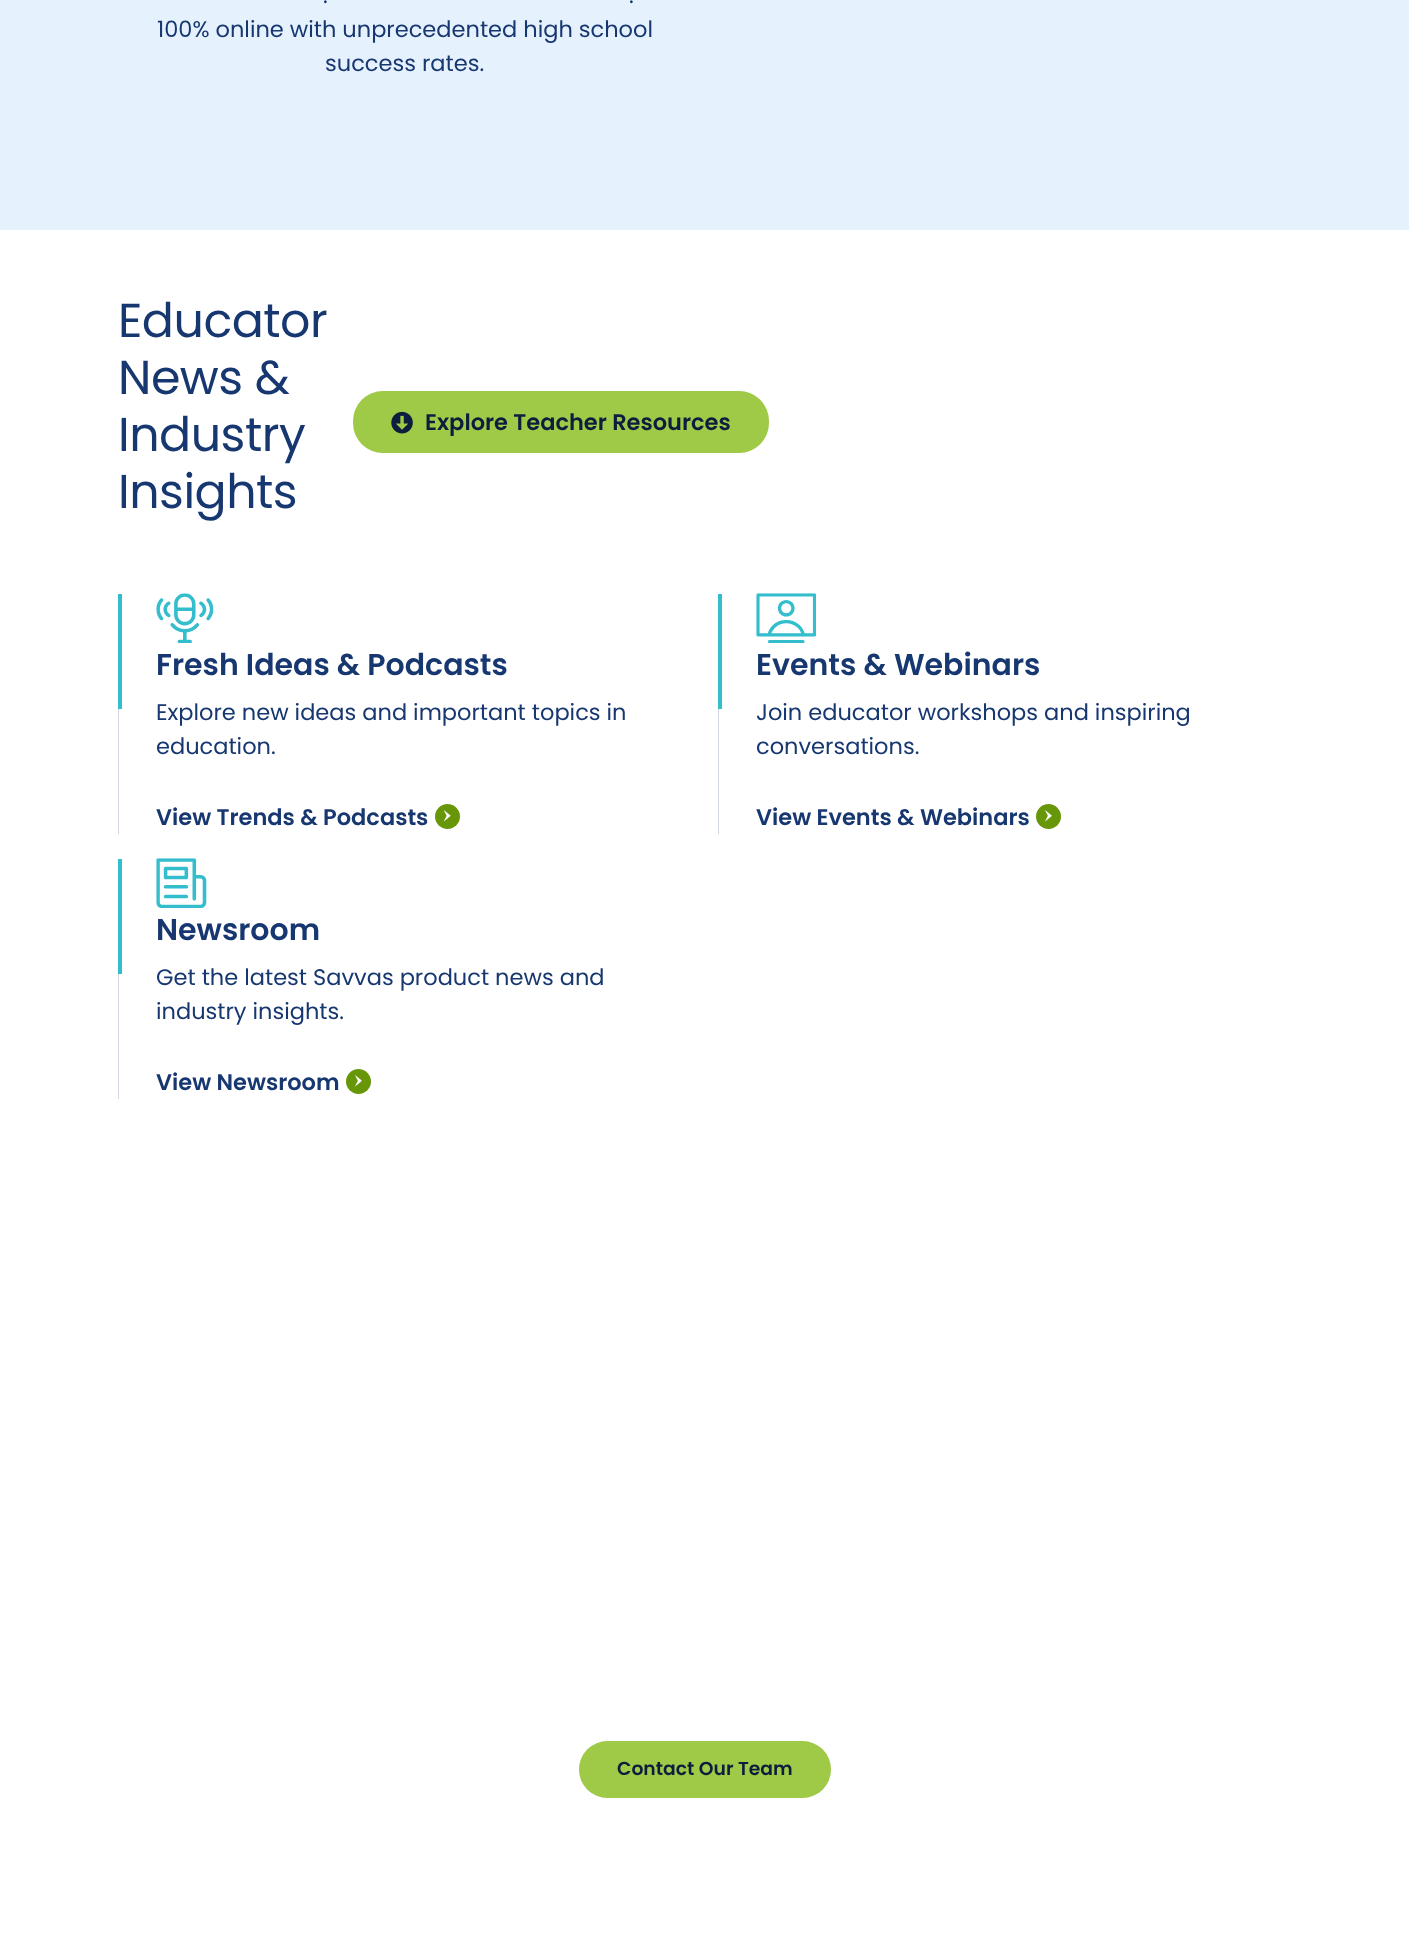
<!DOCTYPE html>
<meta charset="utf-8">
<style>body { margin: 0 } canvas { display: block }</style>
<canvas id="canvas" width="1409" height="1947"></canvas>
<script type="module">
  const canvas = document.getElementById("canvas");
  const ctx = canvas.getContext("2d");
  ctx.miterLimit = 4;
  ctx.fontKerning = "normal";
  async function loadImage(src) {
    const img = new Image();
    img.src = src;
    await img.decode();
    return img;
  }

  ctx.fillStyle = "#ffffff";
  ctx.fillRect(0, 0, 1409, 1947);
  ctx.fillStyle = "#e6f1fe";
  ctx.fillRect(0, 0, 1409, 230);
  ctx.font = "22.5px Poppins";
  ctx.fillStyle = "#173770";
  ctx.fillText(".", 323, 3);
  ctx.fillText(".", 629, 3);
  ctx.fillText("100% online with unprecedented high school", 157, 37);
  ctx.fillText("success rates.", 325, 71);
  ctx.letterSpacing = "-0.5px";
  ctx.font = "47.5px Poppins";
  ctx.fillText("Educator", 118, 337);
  ctx.fillText("News &", 118, 394);
  ctx.fillText("Industry", 118, 451);
  ctx.fillText("Insights", 118, 508);
  ctx.fillStyle = "#9eca47";
  ctx.beginPath();
  ctx.roundRect(353, 391, 416, 62, 30);
  ctx.fill();
  ctx.drawImage(await loadImage("img1.png"), 391, 411, 22, 23);
  ctx.letterSpacing = "0px";
  ctx.font = "600 22.5px Poppins";
  ctx.fillStyle = "#0c1e3d";
  ctx.fillText("Explore Teacher Resources", 425, 430);
  ctx.fillStyle = "#d1d7e2";
  ctx.fillRect(118, 709, 1, 125);
  ctx.fillStyle = "#33bdcd";
  ctx.fillRect(118, 594, 4, 115);
  ctx.drawImage(await loadImage("img2.png"), 156, 593, 58, 50);
  ctx.font = "600 30px Poppins";
  ctx.fillStyle = "#173770";
  ctx.fillText("Fresh Ideas & Podcasts", 156, 675);
  ctx.font = "22.5px Poppins";
  ctx.fillText("Explore new ideas and important topics in", 156, 720);
  ctx.fillText("education.", 156, 754);
  ctx.font = "600 22.5px Poppins";
  ctx.fillText("View Trends & Podcasts", 156, 825);
  ctx.fillStyle = "#679608";
  ctx.beginPath();
  ctx.arc(447.5, 816.5, 12.5, 0, Math.PI * 2);
  ctx.fill();
  ctx.drawImage(await loadImage("img3.png"), 443, 810, 8, 12);
  ctx.fillStyle = "#d1d7e2";
  ctx.fillRect(718, 709, 1, 125);
  ctx.fillStyle = "#33bdcd";
  ctx.fillRect(718, 594, 4, 115);
  ctx.drawImage(await loadImage("img4.png"), 756, 593, 60, 50);
  ctx.font = "600 30px Poppins";
  ctx.fillStyle = "#173770";
  ctx.fillText("Events & Webinars", 756, 675);
  ctx.font = "22.5px Poppins";
  ctx.fillText("Join educator workshops and inspiring", 756, 720);
  ctx.fillText("conversations.", 756, 754);
  ctx.font = "600 22.5px Poppins";
  ctx.fillText("View Events & Webinars", 756, 825);
  ctx.fillStyle = "#679608";
  ctx.beginPath();
  ctx.arc(1048.5, 816.5, 12.5, 0, Math.PI * 2);
  ctx.fill();
  ctx.drawImage(await loadImage("img5.png"), 1045, 810, 7, 12);
  ctx.fillStyle = "#d1d7e2";
  ctx.fillRect(118, 974, 1, 125);
  ctx.fillStyle = "#33bdcd";
  ctx.fillRect(118, 859, 4, 115);
  ctx.drawImage(await loadImage("img6.png"), 156, 858, 51, 50);
  ctx.font = "600 30px Poppins";
  ctx.fillStyle = "#173770";
  ctx.fillText("Newsroom", 156, 940);
  ctx.font = "22.5px Poppins";
  ctx.fillText("Get the latest Savvas product news and", 156, 985);
  ctx.fillText("industry insights.", 156, 1019);
  ctx.font = "600 22.5px Poppins";
  ctx.fillText("View Newsroom", 156, 1090);
  ctx.fillStyle = "#679608";
  ctx.beginPath();
  ctx.arc(358.5, 1081.5, 12.5, 0, Math.PI * 2);
  ctx.fill();
  ctx.drawImage(await loadImage("img5.png"), 355, 1075, 7, 12);
  ctx.fillStyle = "#9eca47";
  ctx.beginPath();
  ctx.roundRect(579, 1741, 252, 57, 28.5);
  ctx.fill();
  ctx.font = "600 18.75px Poppins";
  ctx.fillStyle = "#0c1e3d";
  ctx.fillText("Contact Our Team", 617, 1775);
</script>
